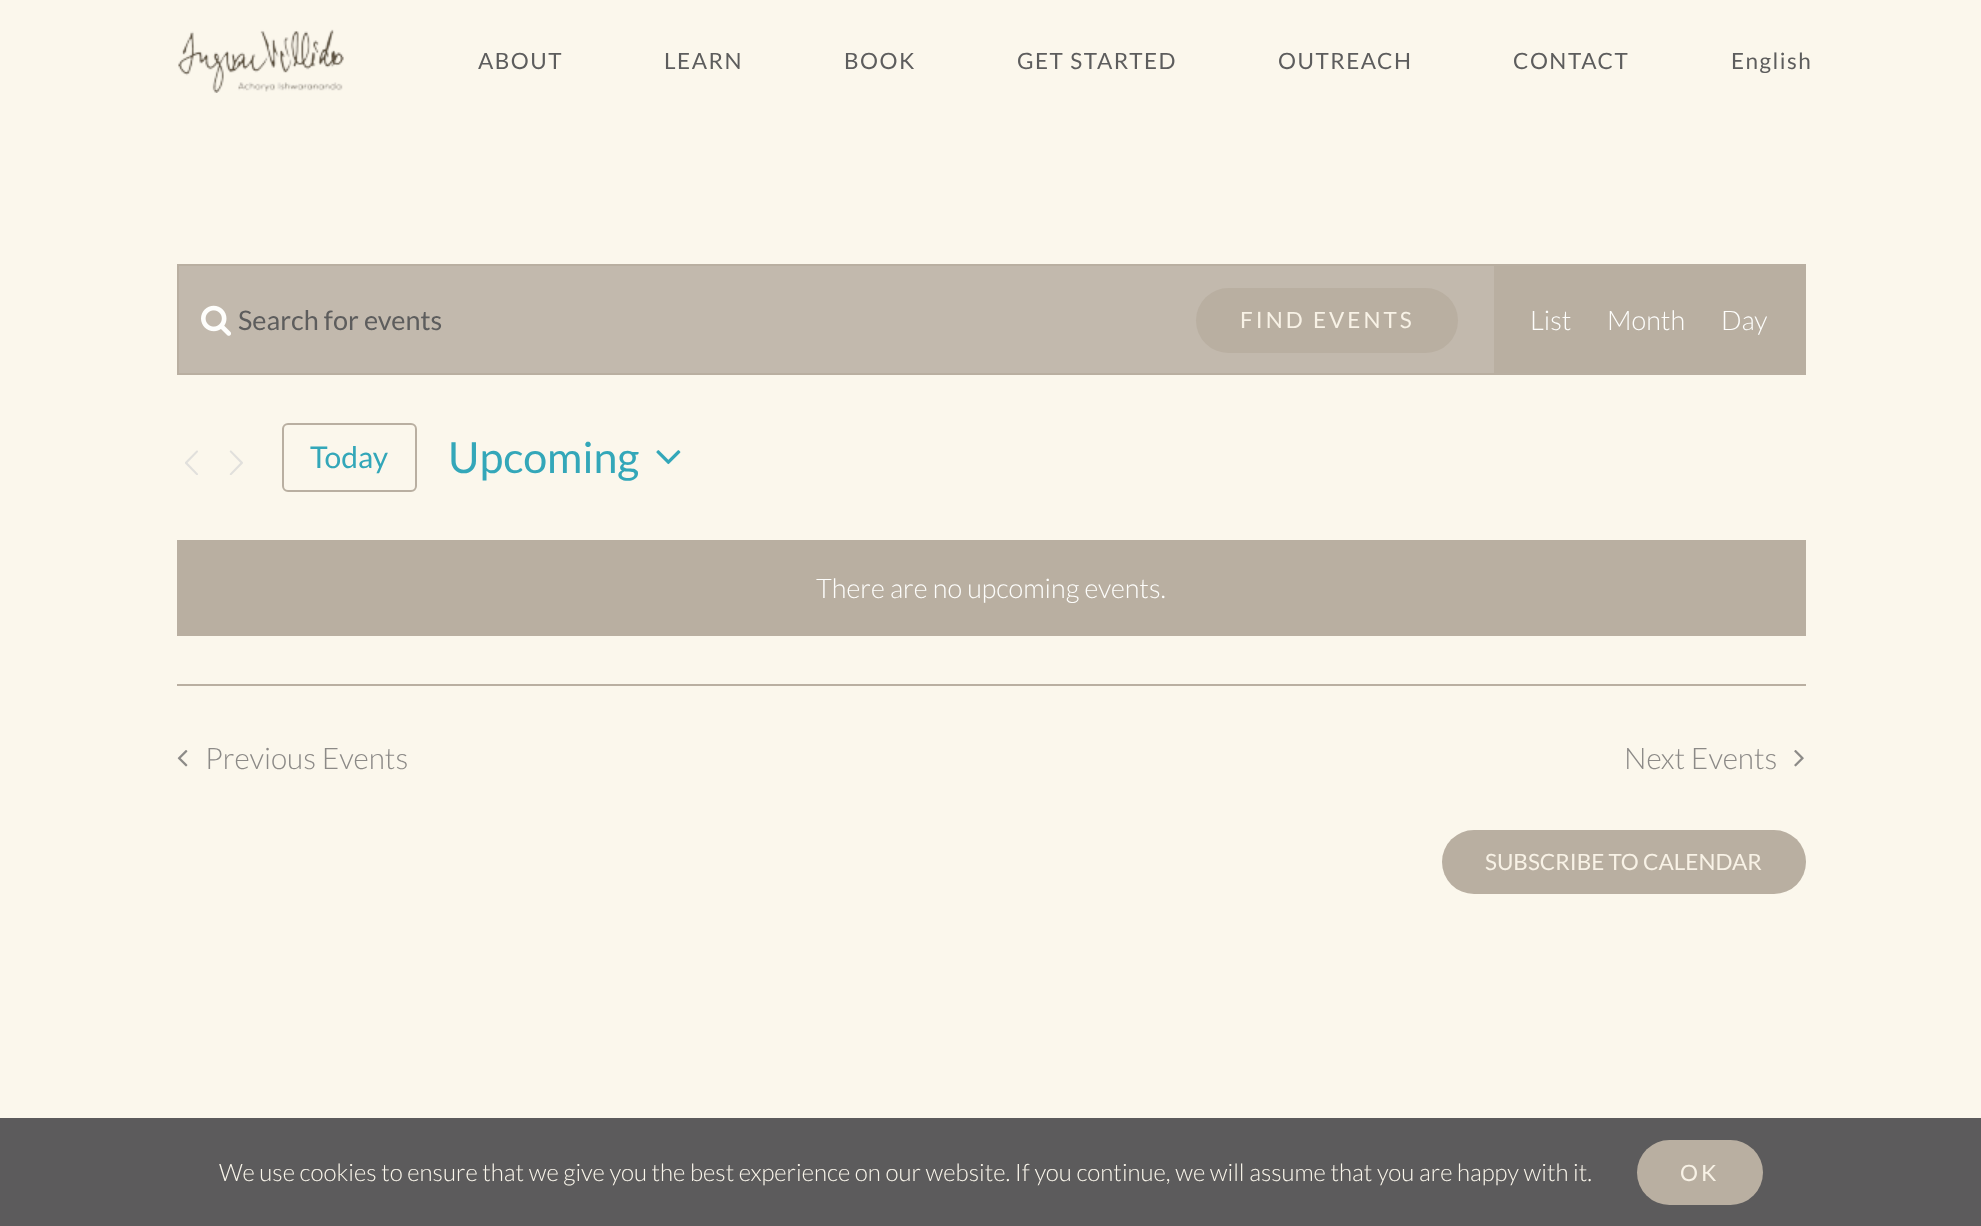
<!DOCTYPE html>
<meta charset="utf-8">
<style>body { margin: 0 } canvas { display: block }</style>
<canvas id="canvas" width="1981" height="1226"></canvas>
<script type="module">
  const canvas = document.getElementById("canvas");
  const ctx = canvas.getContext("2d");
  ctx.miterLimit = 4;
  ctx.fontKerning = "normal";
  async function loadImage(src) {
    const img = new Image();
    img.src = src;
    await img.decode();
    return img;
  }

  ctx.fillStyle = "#fbf7ec";
  ctx.fillRect(0, 0, 1981, 1226);
  ctx.drawImage(await loadImage("img1.png"), 178, 29, 166, 64);
  ctx.letterSpacing = "1.5px";
  ctx.font = "22.5px Lato";
  ctx.fillStyle = "#5d5d5d";
  ctx.fillText("ABOUT", 478, 69);
  ctx.fillText("LEARN", 664, 69);
  ctx.fillText("BOOK", 844, 69);
  ctx.fillText("GET STARTED", 1017, 69);
  ctx.fillText("OUTREACH", 1278, 69);
  ctx.fillText("CONTACT", 1513, 69);
  ctx.fillText("English", 1731, 69);
  ctx.fillStyle = "#c2b9ad";
  ctx.fillRect(179, 266, 1315, 107);
  ctx.strokeStyle = "#b9afa1";
  ctx.lineWidth = 2;
  ctx.strokeRect(178, 265, 1627, 109);
  ctx.drawImage(await loadImage("img2.png"), 201, 305, 30, 31);
  ctx.letterSpacing = "0px";
  ctx.font = "27px Lato";
  ctx.fillStyle = "#5d5d5d";
  ctx.fillText("Search for events", 238, 330);
  ctx.fillStyle = "#b9afa1";
  ctx.beginPath();
  ctx.roundRect(1196, 288, 262, 65, 32.5);
  ctx.fill();
  ctx.letterSpacing = "3px";
  ctx.font = "22.5px Lato";
  ctx.fillStyle = "#f8f2e6";
  ctx.fillText("FIND EVENTS", 1240, 328);
  ctx.fillStyle = "#b9afa1";
  ctx.fillRect(1494, 266, 310, 107);
  ctx.letterSpacing = "0px";
  ctx.font = "300 27px Lato";
  ctx.fillStyle = "#fefefc";
  ctx.fillText("List", 1530, 330);
  ctx.fillText("Month", 1607, 330);
  ctx.fillText("Day", 1721, 330);
  ctx.drawImage(await loadImage("img3.png"), 185, 450, 13, 25);
  ctx.drawImage(await loadImage("img4.png"), 229, 450, 14, 25);
  ctx.beginPath();
  ctx.roundRect(283, 424, 133, 67, 5);
  ctx.stroke();
  ctx.font = "30px Lato";
  ctx.fillStyle = "#33a7b9";
  ctx.fillText("Today", 310, 468);
  ctx.font = "43px Lato";
  ctx.fillText("Upcoming", 448, 473);
  ctx.drawImage(await loadImage("img5.png"), 656, 450, 25, 15);
  ctx.fillStyle = "#b9afa1";
  ctx.fillRect(177, 540, 1629, 96);
  ctx.font = "300 27px Lato";
  ctx.fillStyle = "#fefefc";
  ctx.fillText("There are no upcoming events.", 816, 598);
  ctx.fillStyle = "#b9afa1";
  ctx.fillRect(177, 684, 1629, 2);
  ctx.drawImage(await loadImage("img6.png"), 177, 750, 11, 17);
  ctx.font = "300 29.75px Lato";
  ctx.fillStyle = "#8c8a87";
  ctx.fillText("Previous Events", 205, 769);
  ctx.fillText("Next Events", 1624, 769);
  ctx.drawImage(await loadImage("img7.png"), 1794, 750, 10, 17);
  ctx.fillStyle = "#b9afa1";
  ctx.beginPath();
  ctx.roundRect(1442, 830, 364, 64, 32);
  ctx.fill();
  ctx.font = "22.5px Lato";
  ctx.fillStyle = "#f8f2e6";
  ctx.fillText("SUBSCRIBE TO CALENDAR", 1485, 870);
  ctx.fillStyle = "#5c5b5c";
  ctx.fillRect(0, 1118, 1981, 108);
  ctx.font = "300 24px Lato";
  ctx.fillStyle = "#fbf7ec";
  ctx.fillText("We use cookies to ensure that we give you the best experience on our website. If you continue, we will assume that you are happy with it.", 219, 1181);
  ctx.fillStyle = "#b9afa1";
  ctx.beginPath();
  ctx.roundRect(1637, 1140, 126, 65, 32.5);
  ctx.fill();
  ctx.letterSpacing = "3px";
  ctx.font = "22.5px Lato";
  ctx.fillStyle = "#f8f2e6";
  ctx.fillText("OK", 1680, 1181);
</script>
